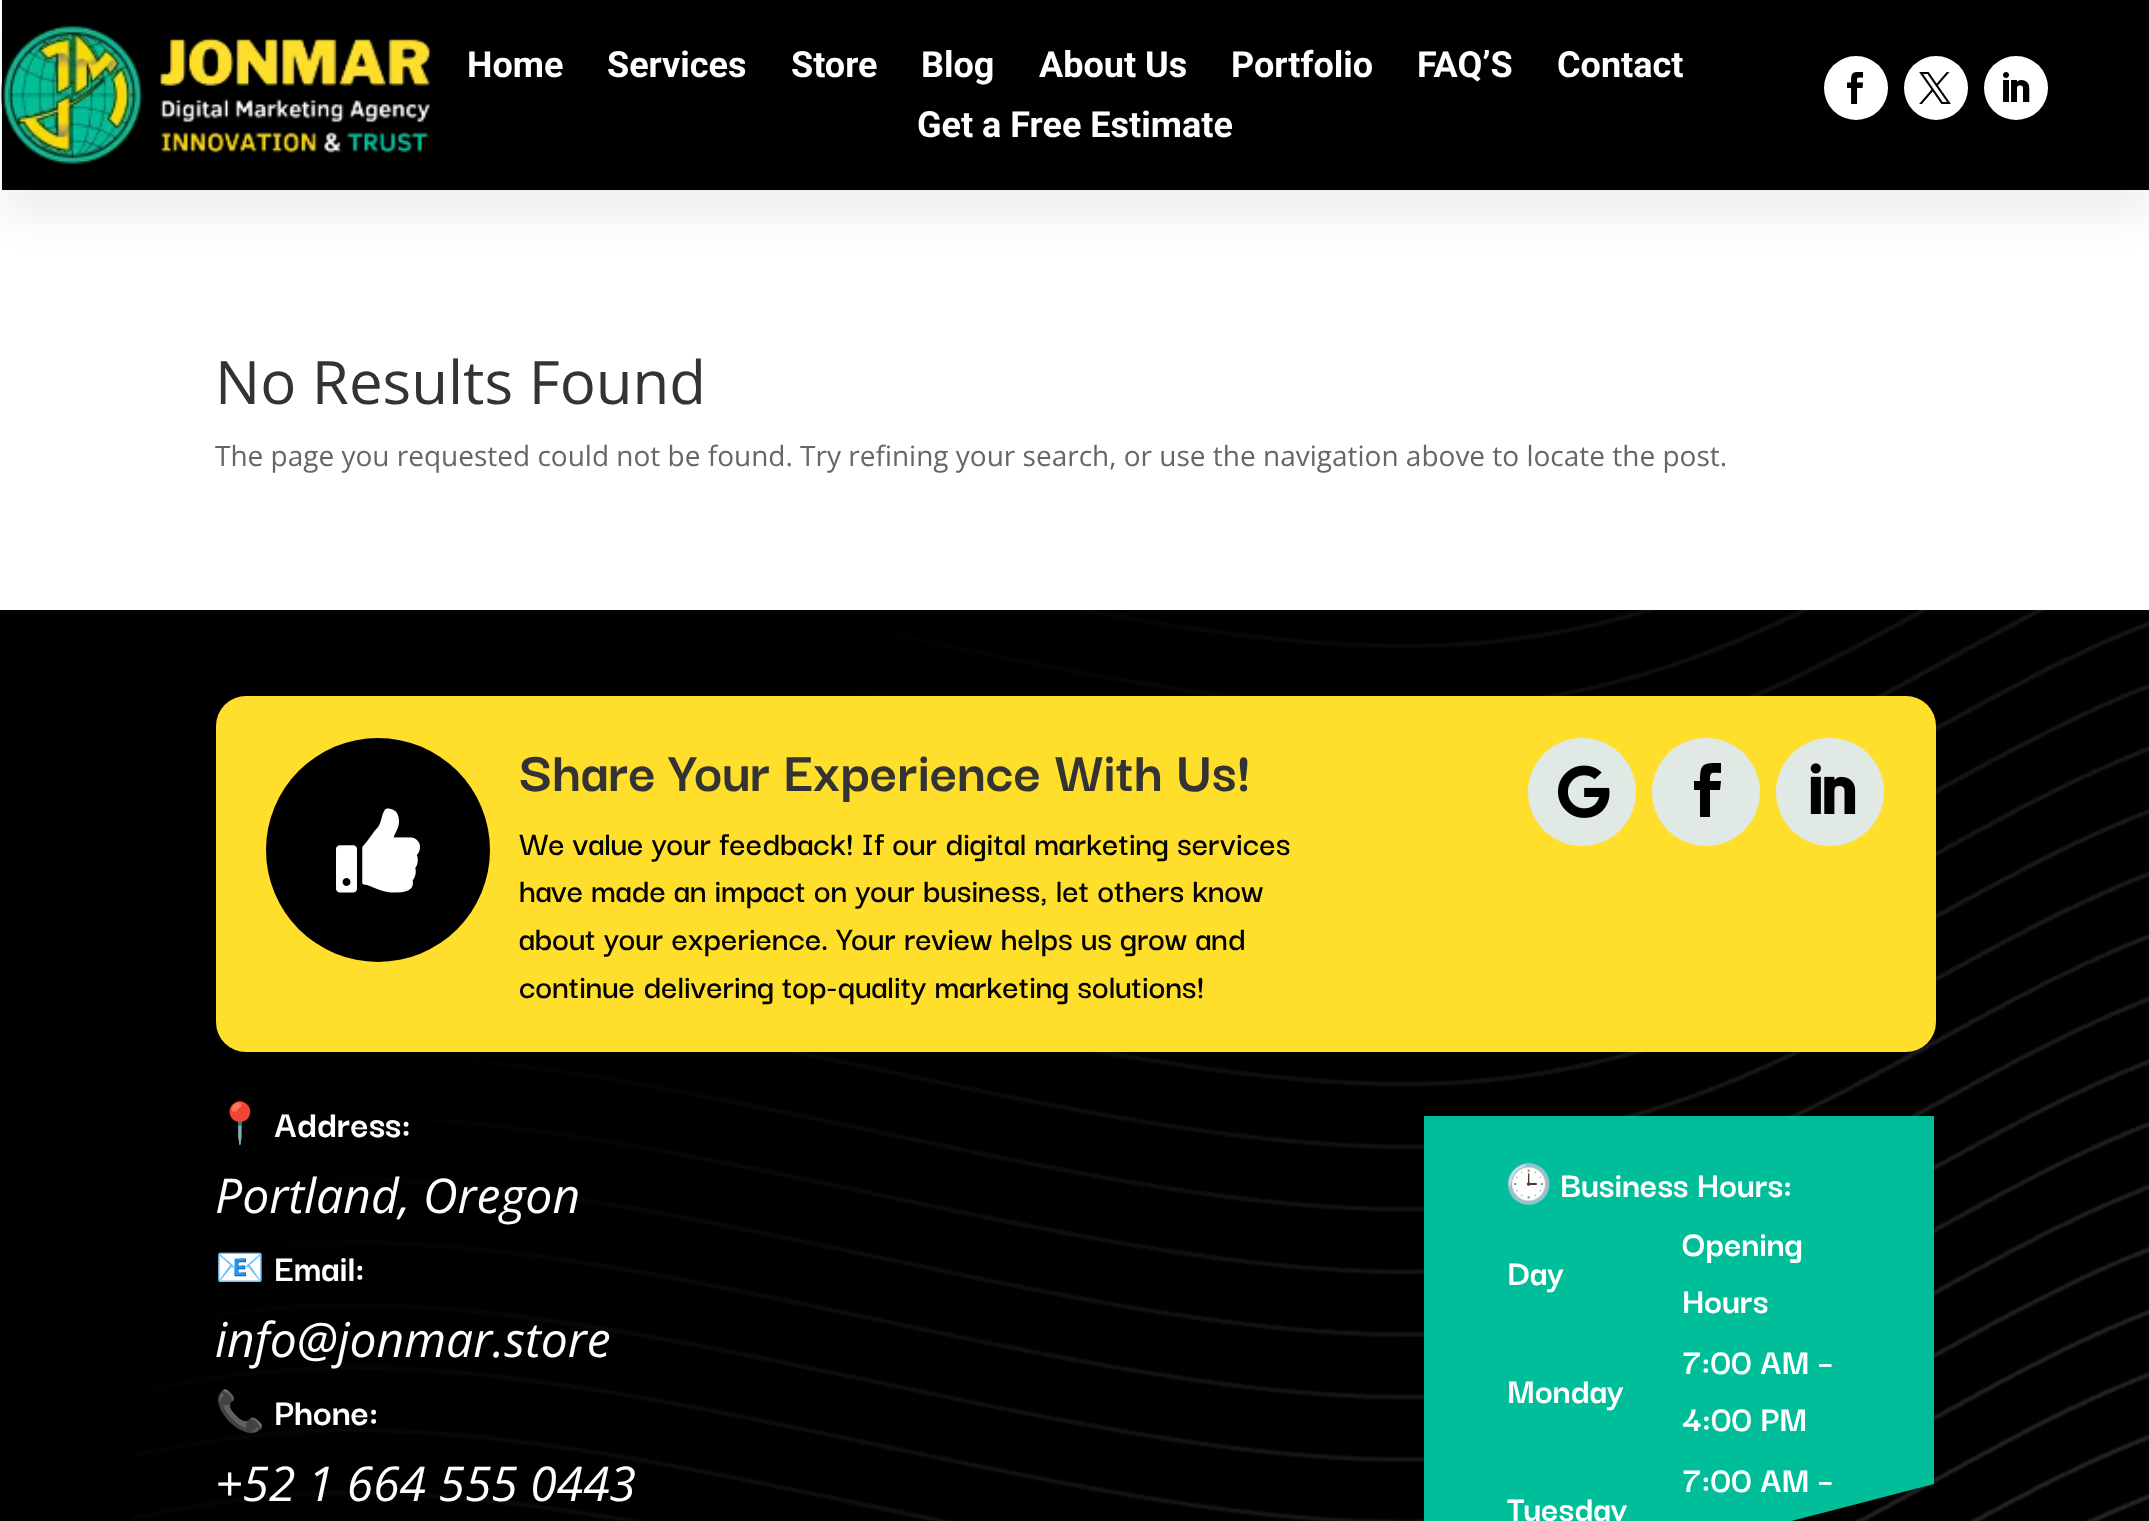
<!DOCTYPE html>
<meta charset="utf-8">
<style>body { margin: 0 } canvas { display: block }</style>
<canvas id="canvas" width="2149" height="1521"></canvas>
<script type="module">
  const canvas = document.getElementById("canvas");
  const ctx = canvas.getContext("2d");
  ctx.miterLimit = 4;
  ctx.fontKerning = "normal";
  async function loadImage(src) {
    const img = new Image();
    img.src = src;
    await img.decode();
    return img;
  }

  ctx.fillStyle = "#ffffff";
  ctx.fillRect(0, 0, 2149, 1521);
  ctx.fillStyle = "rgba(0, 0, 0, 0.06)";
  ctx.filter = "blur(18px)";
  ctx.beginPath();
  ctx.rect(2, 30, 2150, 190);
  ctx.fill();
  ctx.filter = "none";
  ctx.fillStyle = "#000000";
  ctx.fillRect(2, 0, 2147, 190);
  ctx.drawImage(await loadImage("img1.png"), 1, 24, 430, 142);
  ctx.font = "bold 36px Roboto";
  ctx.fillStyle = "#ffffff";
  ctx.fillText("Home", 467, 77);
  ctx.fillText("Services", 607, 77);
  ctx.fillText("Store", 791, 77);
  ctx.fillText("Blog", 921, 77);
  ctx.fillText("About Us", 1039, 77);
  ctx.fillText("Portfolio", 1231, 77);
  ctx.fillText("FAQ’S", 1417, 77);
  ctx.fillText("Contact", 1557, 77);
  ctx.fillText("Get a Free Estimate", 917, 137);
  ctx.beginPath();
  ctx.arc(1856, 88, 32, 0, Math.PI * 2);
  ctx.fill();
  ctx.drawImage(await loadImage("img2.png"), 1847, 72, 17, 32);
  ctx.beginPath();
  ctx.arc(1936, 88, 32, 0, Math.PI * 2);
  ctx.fill();
  ctx.drawImage(await loadImage("img3.png"), 1919, 72, 32, 32);
  ctx.beginPath();
  ctx.arc(2016, 88, 32, 0, Math.PI * 2);
  ctx.fill();
  ctx.drawImage(await loadImage("img4.png"), 2003, 72, 27, 30);
  ctx.font = "60px Open Sans";
  ctx.fillStyle = "#333333";
  ctx.fillText("No Results Found", 215, 404);
  ctx.font = "28px Open Sans";
  ctx.fillStyle = "#666666";
  ctx.fillText("The page you requested could not be found. Try refining your search, or use the navigation above to locate the post.", 215, 466);
  ctx.fillStyle = "#000000";
  ctx.fillRect(0, 610, 2149, 911);
  ctx.drawImage(await loadImage("img5.png"), 131, 610, 2018, 911);
  ctx.fillStyle = "#ffdf2b";
  ctx.beginPath();
  ctx.roundRect(216, 696, 1720, 356, 30);
  ctx.fill();
  ctx.fillStyle = "#000000";
  ctx.beginPath();
  ctx.arc(378, 850, 112, 0, Math.PI * 2);
  ctx.fill();
  ctx.drawImage(await loadImage("img6.png"), 336, 808, 84, 85);
  ctx.font = "bold 60px Darker Grotesque";
  ctx.fillStyle = "#333333";
  ctx.fillText("Share Your Experience With Us!", 519, 791);
  ctx.font = "600 36px Darker Grotesque";
  ctx.fillStyle = "#000000";
  ctx.fillText("We value your feedback! If our digital marketing services", 519, 855);
  ctx.fillText("have made an impact on your business, let others know", 519, 902);
  ctx.fillText("about your experience. Your review helps us grow and", 519, 950);
  ctx.fillText("continue delivering top-quality marketing solutions!", 519, 998);
  ctx.fillStyle = "#e1e9e5";
  ctx.beginPath();
  ctx.arc(1582, 792, 54, 0, Math.PI * 2);
  ctx.fill();
  ctx.drawImage(await loadImage("img7.png"), 1558, 765, 52, 53);
  ctx.beginPath();
  ctx.arc(1706, 792, 54, 0, Math.PI * 2);
  ctx.fill();
  ctx.fillStyle = "#000000";
  ctx.beginPath();
  ctx.moveTo(1700, 817);
  ctx.lineTo(1710, 817);
  ctx.lineTo(1710, 790);
  ctx.lineTo(1720, 790);
  ctx.lineTo(1721, 781);
  ctx.lineTo(1710, 781);
  ctx.bezierCurveTo(1710, 771, 1711, 773, 1721, 773);
  ctx.lineTo(1721, 763);
  ctx.bezierCurveTo(1703, 763, 1700, 763, 1700, 781);
  ctx.lineTo(1694, 781);
  ctx.lineTo(1694, 790);
  ctx.lineTo(1700, 790);
  ctx.closePath();
  ctx.fill();
  ctx.fillStyle = "#e1e9e5";
  ctx.beginPath();
  ctx.arc(1830, 792, 54, 0, Math.PI * 2);
  ctx.fill();
  ctx.drawImage(await loadImage("img8.png"), 1810, 763, 46, 51);
  ctx.font = "bold 40px Noto Color Emoji";
  ctx.fillStyle = "#ffffff";
  ctx.fillText("📍", 215, 1137);
  ctx.font = "bold 40px Darker Grotesque";
  ctx.fillText("Address:", 274, 1137);
  ctx.font = "italic 48px Open Sans";
  ctx.fillText("Portland, Oregon", 215, 1213);
  ctx.font = "bold 40px Noto Color Emoji";
  ctx.fillText("📧", 215, 1281);
  ctx.font = "bold 40px Darker Grotesque";
  ctx.fillText("Email:", 274, 1281);
  ctx.font = "italic 48px Open Sans";
  ctx.fillText("info@jonmar.store", 215, 1357);
  ctx.font = "bold 40px Noto Color Emoji";
  ctx.fillText("📞", 215, 1425);
  ctx.font = "bold 40px Darker Grotesque";
  ctx.fillText("Phone:", 274, 1425);
  ctx.font = "italic 48px Open Sans";
  ctx.fillText("+52 1 664 555 0443", 215, 1501);
  ctx.save();
  ctx.beginPath();
  ctx.rect(1424, 1096, 510, 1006);
  ctx.clip();
  ctx.fillStyle = "#00be99";
  ctx.beginPath();
  ctx.moveTo(1356, 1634);
  ctx.lineTo(2015, 1463);
  ctx.bezierCurveTo(2029, 1459, 2040, 1446, 2040, 1430);
  ctx.lineTo(2040, 1144);
  ctx.bezierCurveTo(2040, 1129, 2027, 1116, 2011, 1116);
  ctx.lineTo(1349, 1116);
  ctx.bezierCurveTo(1334, 1116, 1321, 1129, 1321, 1144);
  ctx.lineTo(1321, 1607);
  ctx.bezierCurveTo(1321, 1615, 1325, 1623, 1332, 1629);
  ctx.bezierCurveTo(1338, 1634, 1347, 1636, 1356, 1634);
  ctx.closePath();
  ctx.fill();
  ctx.restore();
  ctx.font = "bold 38px Noto Color Emoji";
  ctx.fillText("🕒", 1505, 1197);
  ctx.font = "bold 38px Darker Grotesque";
  ctx.fillText("Business Hours:", 1560, 1197);
  ctx.fillText("Day", 1507, 1285);
  ctx.fillText("Opening", 1682, 1256);
  ctx.fillText("Hours", 1682, 1313);
  ctx.fillText("Monday", 1507, 1403);
  ctx.fillText("7:00 AM –", 1682, 1374);
  ctx.fillText("4:00 PM", 1682, 1431);
  ctx.fillText("7:00 AM –", 1682, 1492);
  ctx.fillText("Tuesday", 1507, 1521);
</script>
